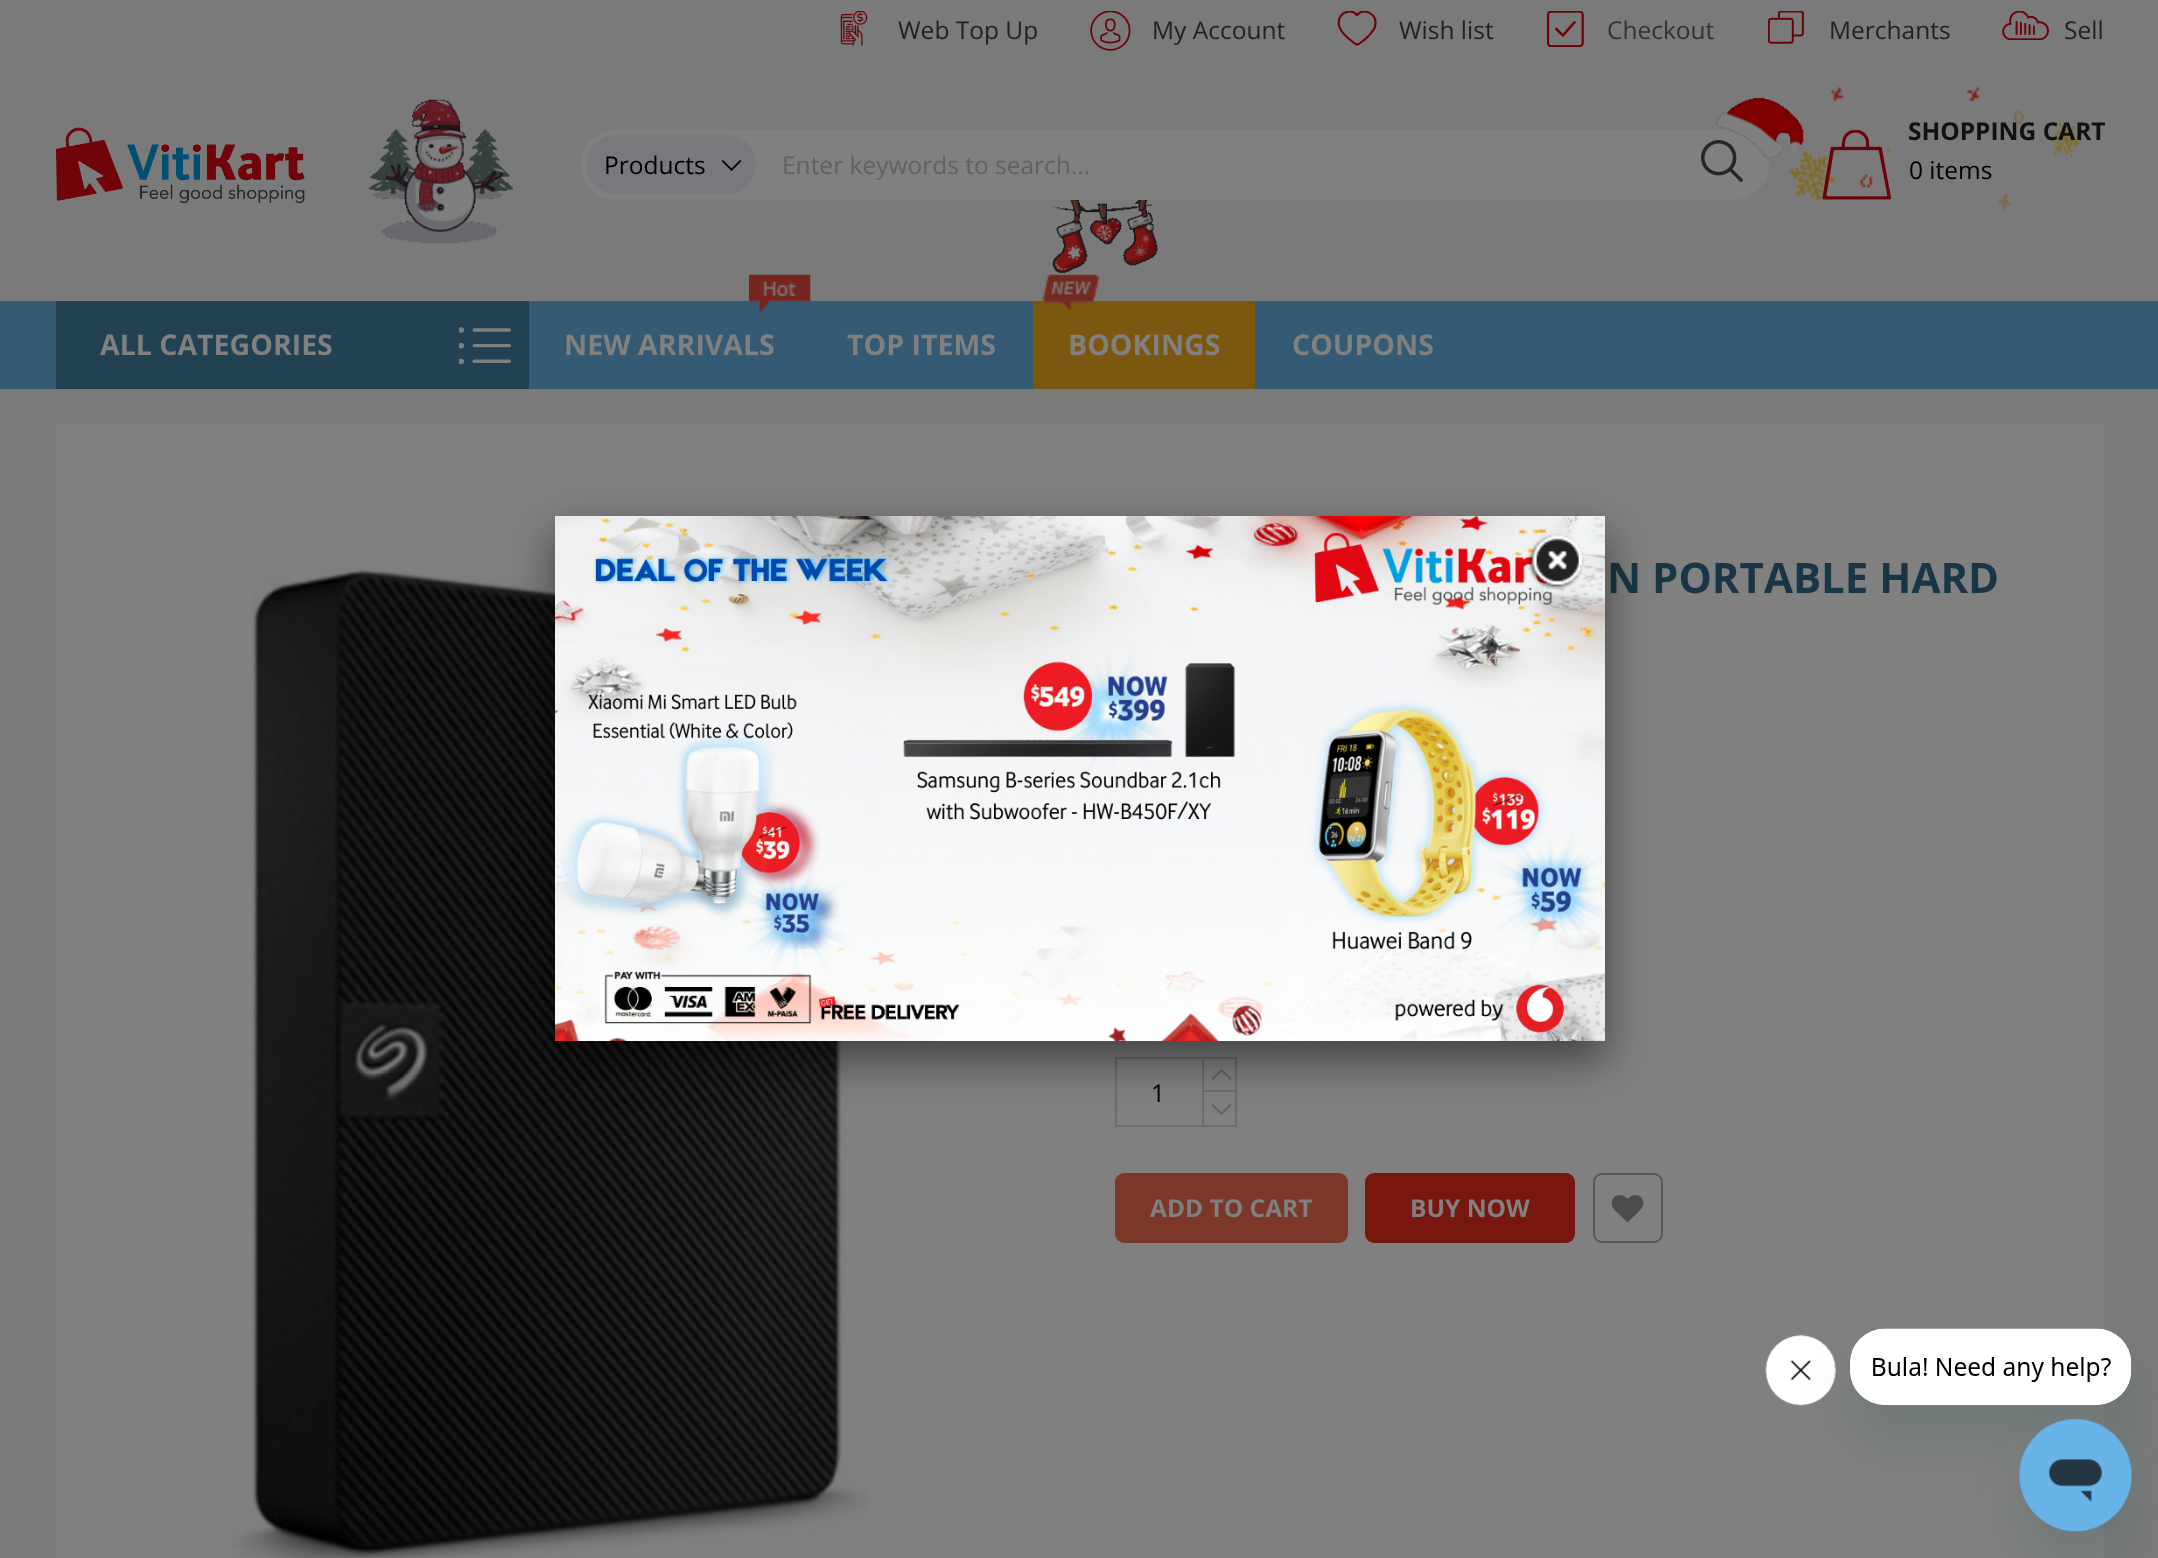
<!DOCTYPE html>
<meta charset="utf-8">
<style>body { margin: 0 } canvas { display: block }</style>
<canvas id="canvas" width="2158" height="1558"></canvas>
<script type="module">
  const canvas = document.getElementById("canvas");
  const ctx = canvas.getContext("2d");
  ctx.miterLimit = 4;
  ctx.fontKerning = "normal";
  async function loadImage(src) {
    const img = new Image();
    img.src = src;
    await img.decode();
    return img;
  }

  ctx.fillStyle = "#7a7a7a";
  ctx.fillRect(0, 0, 2158, 1558);
  ctx.fillStyle = "#777777";
  ctx.fillRect(0, 58, 2158, 2);
  ctx.drawImage(await loadImage("img1.png"), 840, 11, 28, 35);
  ctx.font = "24.5px Open Sans";
  ctx.fillStyle = "#222222";
  ctx.fillText("Web Top Up", 898, 39);
  ctx.drawImage(await loadImage("img2.png"), 1090, 11, 41, 40);
  ctx.fillText("My Account", 1152, 39);
  ctx.save();
  ctx.beginPath();
  ctx.rect(1337, 11, 40, 35);
  ctx.clip();
  ctx.beginPath();
  ctx.moveTo(1375.5, 23);
  ctx.bezierCurveTo(1376, 13.5, 1363.5, 7.5, 1357, 15);
  ctx.bezierCurveTo(1347.5, 4, 1324.5, 21, 1351, 40.5);
  ctx.bezierCurveTo(1358, 46, 1356, 46, 1363.5, 40.5);
  ctx.bezierCurveTo(1366.5, 38, 1369, 36, 1371, 33);
  ctx.bezierCurveTo(1373.5, 30.5, 1375.5, 26.5, 1375.5, 23);
  ctx.closePath();
  ctx.strokeStyle = "#6b0208";
  ctx.lineWidth = 2.1;
  ctx.stroke();
  ctx.restore();
  ctx.fillText("Wish list", 1399, 39);
  ctx.drawImage(await loadImage("img3.png"), 1547, 11, 37, 36);
  ctx.fillStyle = "#333333";
  ctx.fillText("Checkout", 1607, 39);
  ctx.drawImage(await loadImage("img4.png"), 1768, 11, 36, 33);
  ctx.fillStyle = "#222222";
  ctx.fillText("Merchants", 1829, 39);
  ctx.drawImage(await loadImage("img5.png"), 2002, 11, 47, 29);
  ctx.fillText("Sell", 2064, 39);
  ctx.drawImage(await loadImage("img6.png"), 56, 127, 249, 76);
  ctx.drawImage(await loadImage("img7.png"), 368, 99, 145, 145);
  ctx.fillStyle = "#808080";
  ctx.beginPath();
  ctx.roundRect(581, 130, 1188, 70, 35);
  ctx.fill();
  ctx.drawImage(await loadImage("img9.png"), 1701, 140, 42, 42);
  ctx.drawImage(await loadImage("img11.png"), 1788, 87, 292, 125);
  ctx.drawImage(await loadImage("img8.png"), 1715, 97, 89, 62);
  ctx.fillStyle = "#77797d";
  ctx.beginPath();
  ctx.roundRect(586, 135, 170, 59, 29.5);
  ctx.fill();
  ctx.fillStyle = "#000000";
  ctx.fillText("Products", 604, 174);
  ctx.beginPath();
  ctx.moveTo(740, 160);
  ctx.lineTo(741.5, 161);
  ctx.lineTo(731.5, 171);
  ctx.lineTo(730.5, 169.5);
  ctx.closePath();
  ctx.fill();
  ctx.beginPath();
  ctx.moveTo(723, 160);
  ctx.lineTo(732.5, 169.5);
  ctx.lineTo(731.5, 171);
  ctx.lineTo(721.5, 161);
  ctx.closePath();
  ctx.fill();
  ctx.fillStyle = "#616161";
  ctx.fillText("Enter keywords to search...", 782, 174);
  ctx.drawImage(await loadImage("img10.png"), 1052, 200, 106, 73);
  ctx.drawImage(await loadImage("img12.png"), 1822, 130, 69, 70);
  ctx.font = "bold 24.5px Open Sans";
  ctx.fillStyle = "#111111";
  ctx.fillText("SHOPPING CART", 1908, 140);
  ctx.font = "24.5px Open Sans";
  ctx.fillStyle = "#000000";
  ctx.fillText("0 items", 1909, 179);
  ctx.fillStyle = "#345a74";
  ctx.fillRect(0, 301, 2158, 88);
  ctx.fillStyle = "#224152";
  ctx.fillRect(56, 301, 473, 88);
  ctx.font = "bold 28.5px Open Sans";
  ctx.fillStyle = "#808080";
  ctx.fillText("ALL CATEGORIES", 100, 355);
  ctx.drawImage(await loadImage("img13.png"), 459, 327, 52, 37);
  ctx.drawImage(await loadImage("img14.png"), 749, 274, 62, 40);
  ctx.fillText("NEW ARRIVALS", 564, 355);
  ctx.fillText("TOP ITEMS", 847, 355);
  ctx.fillStyle = "#7b5710";
  ctx.fillRect(1033, 301, 222, 88);
  ctx.drawImage(await loadImage("img15.png"), 1042, 274, 58, 37);
  ctx.fillStyle = "#808080";
  ctx.fillText("BOOKINGS", 1068, 355);
  ctx.fillText("COUPONS", 1292, 355);
  ctx.fillRect(56, 424, 2048, 1134);
  ctx.drawImage(await loadImage("img16.png"), 232, 568, 638, 990);
  ctx.font = "bold 42px Open Sans";
  ctx.fillStyle = "#1a3644";
  ctx.fillText("N PORTABLE HARD", 1607, 593);
  ctx.strokeStyle = "#6d6d6d";
  ctx.lineWidth = 2;
  ctx.strokeRect(1116, 1058, 120, 68);
  ctx.font = "24.5px Open Sans";
  ctx.fillStyle = "#000000";
  ctx.fillText("1", 1151, 1102);
  ctx.fillStyle = "#6d6d6d";
  ctx.fillRect(1202, 1090, 35, 2);
  ctx.fillRect(1202, 1057, 2, 70);
  ctx.drawImage(await loadImage("img17.png"), 1211, 1069, 21, 11);
  ctx.drawImage(await loadImage("img18.png"), 1211, 1104, 21, 11);
  ctx.fillStyle = "#7a372a";
  ctx.beginPath();
  ctx.roundRect(1115, 1173, 233, 70, 9);
  ctx.fill();
  ctx.font = "bold 24.5px Open Sans";
  ctx.fillStyle = "#808080";
  ctx.fillText("ADD TO CART", 1150, 1217);
  ctx.fillStyle = "#78170f";
  ctx.beginPath();
  ctx.roundRect(1365, 1173, 210, 70, 9);
  ctx.fill();
  ctx.fillStyle = "#808080";
  ctx.fillText("BUY NOW", 1410, 1217);
  ctx.beginPath();
  ctx.roundRect(1594, 1174, 68, 68, 8);
  ctx.strokeStyle = "#575757";
  ctx.stroke();
  ctx.drawImage(await loadImage("img19.png"), 1611, 1195, 33, 27);
  ctx.fillStyle = "rgba(0, 0, 0, 0.5)";
  ctx.filter = "blur(22px)";
  ctx.beginPath();
  ctx.rect(555, 534, 1050, 525);
  ctx.fill();
  ctx.filter = "none";
  ctx.drawImage(await loadImage("img20.png"), 555, 516, 1050, 525);
  ctx.drawImage(await loadImage("img21.png"), 1527, 533, 57, 57);
  ctx.drawImage(await loadImage("img23.png"), 1765, 1335, 71, 71);
  ctx.fillStyle = "rgba(23, 73, 77, 0.15)";
  ctx.filter = "blur(26px)";
  ctx.beginPath();
  ctx.roundRect(1850, 1363, 282, 77, 35);
  ctx.fill();
  ctx.filter = "none";
  ctx.drawImage(await loadImage("img22.png"), 1850, 1328, 282, 77);
  ctx.filter = "blur(26px)";
  ctx.beginPath();
  ctx.roundRect(2020, 1454, 112, 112, 56);
  ctx.fill();
  ctx.filter = "none";
  ctx.drawImage(await loadImage("img24.png"), 2019, 1419, 113, 113);
</script>
